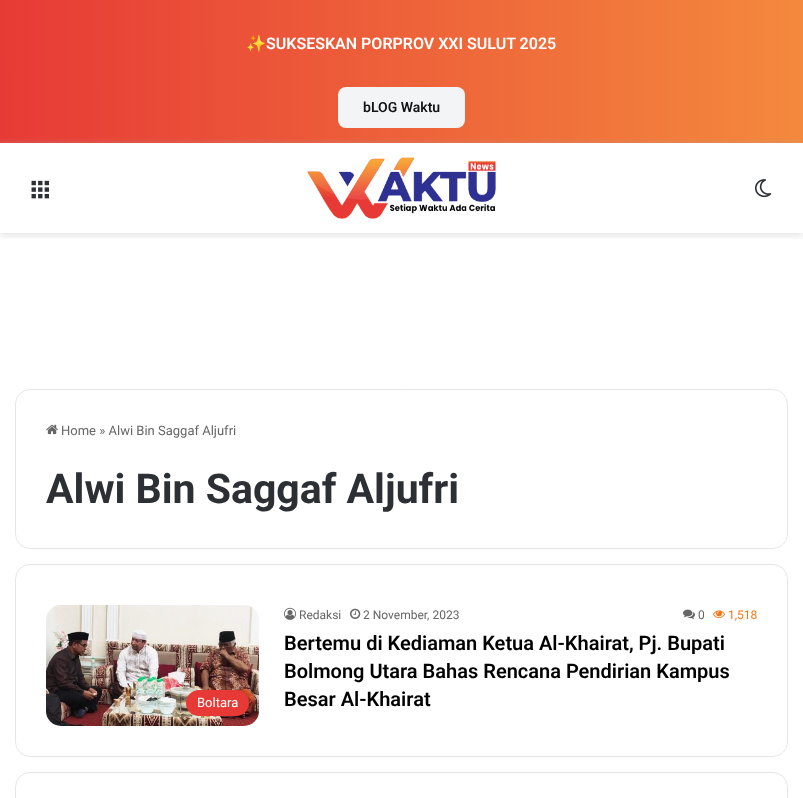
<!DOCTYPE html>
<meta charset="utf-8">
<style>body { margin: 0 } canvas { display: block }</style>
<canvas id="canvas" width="803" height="798"></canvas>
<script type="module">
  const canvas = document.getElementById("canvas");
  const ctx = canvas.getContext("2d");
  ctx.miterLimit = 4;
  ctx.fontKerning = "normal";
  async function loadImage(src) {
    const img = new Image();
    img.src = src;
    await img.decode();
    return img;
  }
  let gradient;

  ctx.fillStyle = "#ffffff";
  ctx.fillRect(0, 0, 803, 798);
  gradient = ctx.createLinearGradient(0, 72, 803, 71);
  gradient.addColorStop(0, "#e73a36");
  gradient.addColorStop(1, "#f4893d");
  ctx.fillStyle = gradient;
  ctx.fillRect(0, 0, 803, 143);
  ctx.font = "16px Noto Color Emoji";
  ctx.fillStyle = "#ffffff";
  ctx.fillText("✨", 246, 49);
  ctx.font = "600 16px Roboto";
  ctx.fillText("SUKSESKAN PORPROV XXI SULUT 2025", 266, 49);
  ctx.fillStyle = "#f3f4f6";
  ctx.beginPath();
  ctx.roundRect(338, 87, 127, 41, 8);
  ctx.fill();
  ctx.font = "600 14px Roboto";
  ctx.fillStyle = "#141414";
  ctx.fillText("bLOG Waktu", 363, 112);
  ctx.save();
  ctx.beginPath();
  ctx.rect(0, 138, 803, 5);
  ctx.clip();
  ctx.fillStyle = "rgba(171, 171, 171, 0.5)";
  ctx.filter = "blur(3.5px)";
  ctx.beginPath();
  ctx.rect(0, 144, 803, 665);
  ctx.fill();
  ctx.filter = "none";
  ctx.restore();
  ctx.save();
  ctx.beginPath();
  ctx.rect(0, 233, 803, 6);
  ctx.clip();
  ctx.fillStyle = "rgba(0, 0, 0, 0.1)";
  ctx.filter = "blur(3.5px)";
  ctx.beginPath();
  ctx.rect(0, 146, 803, 90);
  ctx.fill();
  ctx.filter = "none";
  ctx.restore();
  ctx.drawImage(await loadImage("img1.png"), 31, 180, 19, 19);
  ctx.drawImage(await loadImage("img2.png"), 307, 157, 189, 62);
  ctx.drawImage(await loadImage("img3.png"), 755, 179, 17, 19);
  ctx.beginPath();
  ctx.roundRect(15.5, 389.5, 772, 159, 14.5);
  ctx.strokeStyle = "#e6e6e6";
  ctx.stroke();
  ctx.drawImage(await loadImage("img4.png"), 46, 424, 12, 11);
  ctx.font = "13px Roboto";
  ctx.fillStyle = "#666666";
  ctx.fillText("Home » Alwi Bin Saggaf Aljufri", 61, 435);
  ctx.font = "bold 41px Roboto";
  ctx.fillStyle = "#2c2f34";
  ctx.fillText("Alwi Bin Saggaf Aljufri", 46, 503);
  ctx.beginPath();
  ctx.roundRect(15.5, 564.5, 772, 192, 14.5);
  ctx.stroke();
  ctx.drawImage(await loadImage("img5.png"), 46, 605, 213, 121);
  ctx.fillStyle = "#e73a36";
  ctx.beginPath();
  ctx.roundRect(186, 690, 63, 26, 13);
  ctx.fill();
  ctx.font = "13px Roboto";
  ctx.fillStyle = "#ffffff";
  ctx.fillText("Boltara", 197, 707);
  ctx.drawImage(await loadImage("img6.png"), 284, 607, 12, 13);
  ctx.font = "12px Roboto";
  ctx.fillStyle = "#666666";
  ctx.fillText("Redaksi", 299, 619);
  ctx.drawImage(await loadImage("img7.png"), 350, 608, 11, 11);
  ctx.fillText("2 November, 2023", 363, 619);
  ctx.drawImage(await loadImage("img8.png"), 683, 609, 12, 10);
  ctx.fillText("0", 698, 619);
  ctx.drawImage(await loadImage("img9.png"), 713, 610, 12, 9);
  ctx.fillStyle = "#f47512";
  ctx.fillText("1,518", 728, 619);
  ctx.font = "600 20px Roboto";
  ctx.fillStyle = "#000000";
  ctx.fillText("Bertemu di Kediaman Ketua Al-Khairat, Pj. Bupati", 284, 650);
  ctx.fillText("Bolmong Utara Bahas Rencana Pendirian Kampus", 284, 678);
  ctx.fillText("Besar Al-Khairat", 284, 706);
  ctx.beginPath();
  ctx.roundRect(15.5, 772.5, 772, 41, 14.5);
  ctx.stroke();
</script>
